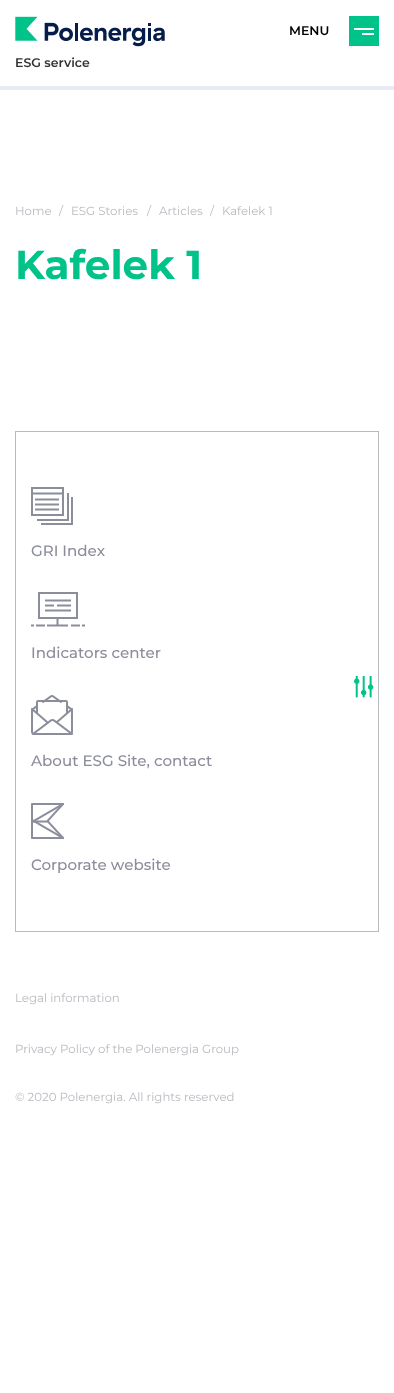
<!DOCTYPE html>
<meta charset="utf-8">
<style>body { margin: 0 } canvas { display: block }</style>
<canvas id="canvas" width="394" height="1393"></canvas>
<script type="module">
  const canvas = document.getElementById("canvas");
  const ctx = canvas.getContext("2d");
  ctx.miterLimit = 4;
  ctx.fontKerning = "normal";
  async function loadImage(src) {
    const img = new Image();
    img.src = src;
    await img.decode();
    return img;
  }

  ctx.fillStyle = "#ffffff";
  ctx.fillRect(0, 0, 394, 1393);
  ctx.fillStyle = "#00c389";
  ctx.fillRect(349, 16, 30, 30);
  ctx.font = "600 12.5px Montserrat";
  ctx.fillStyle = "#000000";
  ctx.fillText("MENU", 289, 35);
  ctx.fillStyle = "#ffffff";
  ctx.fillRect(354, 28, 20, 2);
  ctx.fillRect(362, 33, 12, 2);
  ctx.drawImage(await loadImage("img1.png"), 15, 16, 150, 31);
  ctx.fillStyle = "#333333";
  ctx.fillText("ESG service", 15, 67);
  ctx.fillStyle = "#e8ebf3";
  ctx.fillRect(0, 86, 394, 4);
  ctx.font = "11.75px Montserrat";
  ctx.fillStyle = "#bab9c0";
  ctx.fillText("Home", 15, 215);
  ctx.fillText("/", 59, 215);
  ctx.fillText("ESG Stories", 71, 215);
  ctx.fillText("/", 147, 215);
  ctx.fillText("Articles", 159, 215);
  ctx.fillText("/", 210, 215);
  ctx.fillText("Kafelek 1", 222, 215);
  ctx.font = "bold 40.5px Montserrat";
  ctx.fillStyle = "#00c389";
  ctx.fillText("Kafelek 1", 15, 279);
  ctx.strokeStyle = "#bab9c0";
  ctx.strokeRect(15.5, 431.5, 363, 500);
  ctx.drawImage(await loadImage("img2.png"), 354, 676, 20, 22);
  ctx.drawImage(await loadImage("img3.png"), 31, 487, 42, 38);
  ctx.font = "500 15.1px Montserrat";
  ctx.fillStyle = "#8b8d9a";
  ctx.fillText("GRI Index", 31, 556);
  ctx.beginPath();
  ctx.moveTo(45, 600.5);
  ctx.lineTo(71, 600.5);
  ctx.moveTo(45, 605.5);
  ctx.lineTo(54, 605.5);
  ctx.moveTo(57, 605.5);
  ctx.lineTo(71, 605.5);
  ctx.moveTo(45, 610.5);
  ctx.lineTo(71, 610.5);
  ctx.moveTo(39, 618);
  ctx.lineTo(77, 618);
  ctx.lineTo(77, 593);
  ctx.lineTo(39, 593);
  ctx.closePath();
  ctx.moveTo(47, 625.5);
  ctx.lineTo(68, 625.5);
  ctx.moveTo(57.5, 618);
  ctx.lineTo(57.5, 626);
  ctx.moveTo(36, 625.5);
  ctx.lineTo(45, 625.5);
  ctx.moveTo(71, 625.5);
  ctx.lineTo(80, 625.5);
  ctx.moveTo(82, 625.5);
  ctx.lineTo(85, 625.5);
  ctx.moveTo(31, 625.5);
  ctx.lineTo(34, 625.5);
  ctx.strokeStyle = "#8b8d9a";
  ctx.lineWidth = 2;
  ctx.stroke();
  ctx.fillText("Indicators center", 31, 658);
  ctx.drawImage(await loadImage("img4.png"), 31, 695, 42, 40);
  ctx.fillText("About ESG Site, contact", 31, 766);
  ctx.drawImage(await loadImage("img5.png"), 31, 803, 33, 36);
  ctx.fillText("Corporate website", 31, 870);
  ctx.font = "11.75px Montserrat";
  ctx.fillStyle = "#bab9c0";
  ctx.fillText("Legal information", 15, 1002);
  ctx.fillText("Privacy Policy of the Polenergia Group", 15, 1053);
  ctx.fillText("© 2020 Polenergia. All rights reserved", 15, 1101);
</script>
